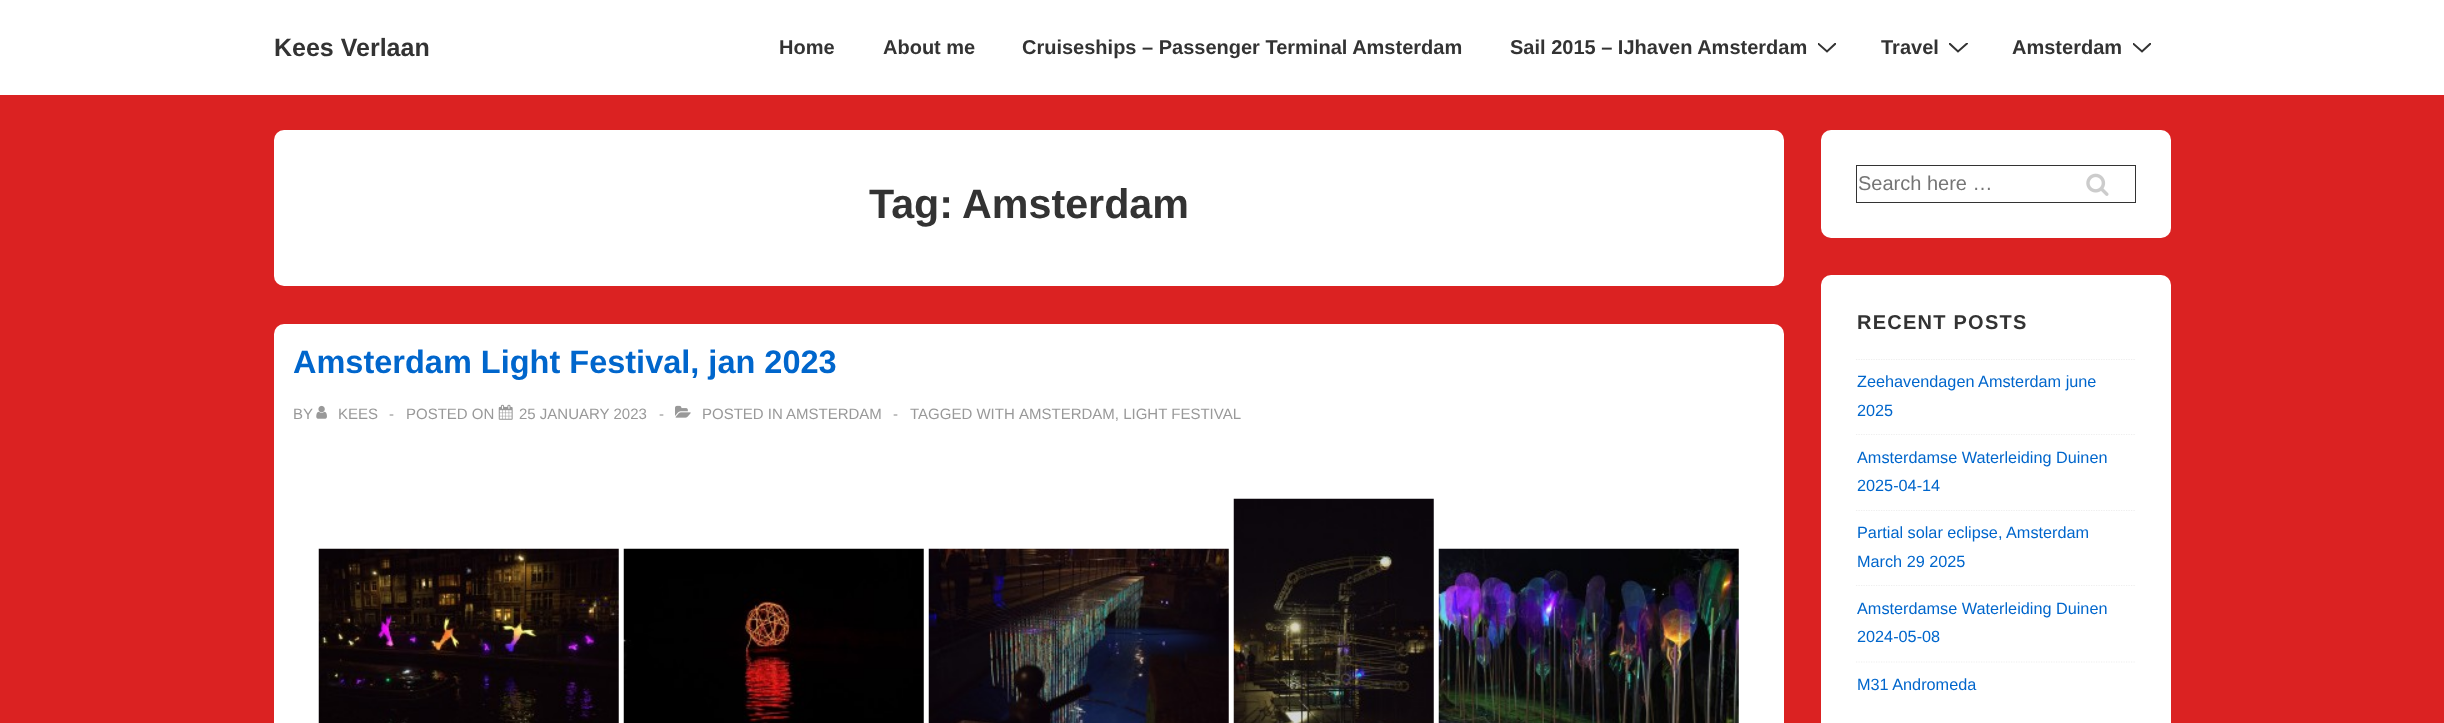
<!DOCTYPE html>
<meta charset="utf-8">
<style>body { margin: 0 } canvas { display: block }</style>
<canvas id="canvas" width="2444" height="723"></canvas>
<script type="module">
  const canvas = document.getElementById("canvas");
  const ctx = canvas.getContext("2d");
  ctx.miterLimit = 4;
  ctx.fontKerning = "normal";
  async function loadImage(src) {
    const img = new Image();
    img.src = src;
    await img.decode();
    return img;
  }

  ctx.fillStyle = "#db2222";
  ctx.fillRect(0, 0, 2444, 723);
  ctx.fillStyle = "#ffffff";
  ctx.fillRect(0, 0, 2444, 95);
  ctx.font = "bold 25px Liberation Sans";
  ctx.fillStyle = "#333333";
  ctx.fillText("Kees Verlaan", 274, 56);
  ctx.font = "bold 20px Liberation Sans";
  ctx.fillText("Home", 779, 54);
  ctx.fillText("About me", 883, 54);
  ctx.fillText("Cruiseships – Passenger Terminal Amsterdam", 1022, 54);
  ctx.fillText("Sail 2015 – IJhaven Amsterdam", 1510, 54);
  ctx.save();
  ctx.beginPath();
  ctx.rect(1818, 43, 18, 10);
  ctx.clip();
  ctx.beginPath();
  ctx.moveTo(1818, 43.5);
  ctx.lineTo(1827, 51.5);
  ctx.lineTo(1835.5, 43.5);
  ctx.strokeStyle = "#333333";
  ctx.lineWidth = 2;
  ctx.lineCap = "round";
  ctx.stroke();
  ctx.restore();
  ctx.fillText("Travel", 1881, 54);
  ctx.save();
  ctx.beginPath();
  ctx.rect(1949, 43, 19, 10);
  ctx.clip();
  ctx.beginPath();
  ctx.moveTo(1949.5, 43.5);
  ctx.lineTo(1958, 51.5);
  ctx.lineTo(1967, 43.5);
  ctx.strokeStyle = "#333333";
  ctx.lineWidth = 2;
  ctx.lineCap = "round";
  ctx.stroke();
  ctx.restore();
  ctx.fillText("Amsterdam", 2012, 54);
  ctx.save();
  ctx.beginPath();
  ctx.rect(2133, 43, 18, 10);
  ctx.clip();
  ctx.beginPath();
  ctx.moveTo(2133, 43.5);
  ctx.lineTo(2142, 51.5);
  ctx.lineTo(2150.5, 43.5);
  ctx.strokeStyle = "#333333";
  ctx.lineWidth = 2;
  ctx.lineCap = "round";
  ctx.stroke();
  ctx.restore();
  ctx.fillStyle = "#ffffff";
  ctx.beginPath();
  ctx.roundRect(274, 130, 1510, 156, 10);
  ctx.fill();
  ctx.font = "bold 41.25px Liberation Sans";
  ctx.fillStyle = "#333333";
  ctx.fillText("Tag:", 869, 218);
  ctx.fillText("Amsterdam", 962, 218);
  ctx.fillStyle = "#ffffff";
  ctx.beginPath();
  ctx.roundRect(274, 324, 1510, 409, 10);
  ctx.fill();
  ctx.font = "bold 32.5px Liberation Sans";
  ctx.fillStyle = "#0066cc";
  ctx.fillText("Amsterdam Light Festival, jan 2023", 293, 373);
  ctx.font = "15px Liberation Sans";
  ctx.fillStyle = "#999999";
  ctx.fillText("BY", 293, 419);
  ctx.drawImage(await loadImage("img1.png"), 316, 405, 11, 14);
  ctx.fillText("KEES", 338, 419);
  ctx.fillText("-", 389, 419);
  ctx.fillText("POSTED ON", 406, 419);
  ctx.drawImage(await loadImage("img2.png"), 498, 404, 15, 16);
  ctx.fillText("25 JANUARY 2023", 519, 419);
  ctx.fillText("-", 659, 419);
  ctx.drawImage(await loadImage("img3.png"), 675, 405, 16, 13);
  ctx.fillText("POSTED IN", 702, 419);
  ctx.fillText("AMSTERDAM", 786, 419);
  ctx.fillText("-", 893, 419);
  ctx.fillText("TAGGED WITH", 910, 419);
  ctx.fillText("AMSTERDAM, LIGHT FESTIVAL", 1019, 419);
  ctx.drawImage(await loadImage("img4.png"), 318, 548, 301, 175);
  ctx.drawImage(await loadImage("img5.png"), 623, 548, 301, 175);
  ctx.drawImage(await loadImage("img6.png"), 928, 548, 301, 175);
  ctx.drawImage(await loadImage("img7.png"), 1233, 498, 201, 225);
  ctx.drawImage(await loadImage("img8.png"), 1438, 548, 301, 175);
  ctx.fillStyle = "#ffffff";
  ctx.beginPath();
  ctx.roundRect(1821, 130, 350, 108, 10);
  ctx.fill();
  ctx.strokeStyle = "#333333";
  ctx.strokeRect(1856.5, 165.5, 279, 37);
  ctx.font = "20px Liberation Sans";
  ctx.fillStyle = "#757575";
  ctx.fillText("Search here …", 1858, 190);
  ctx.drawImage(await loadImage("img9.png"), 2086, 173, 23, 23);
  ctx.fillStyle = "#ffffff";
  ctx.beginPath();
  ctx.roundRect(1821, 275, 350, 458, 10);
  ctx.fill();
  ctx.letterSpacing = "1.25px";
  ctx.font = "bold 20px Liberation Sans";
  ctx.fillStyle = "#333333";
  ctx.fillText("RECENT POSTS", 1857, 329);
  ctx.beginPath();
  ctx.moveTo(1856, 359.5);
  ctx.lineTo(2136, 359.5);
  ctx.strokeStyle = "#eeeeee";
  ctx.lineWidth = 1.2;
  ctx.setLineDash([1.25, 1.25]);
  ctx.stroke();
  ctx.letterSpacing = "0px";
  ctx.font = "16.25px Liberation Sans";
  ctx.fillStyle = "#0066cc";
  ctx.fillText("Zeehavendagen Amsterdam june", 1857, 387);
  ctx.fillText("2025", 1857, 416);
  ctx.beginPath();
  ctx.moveTo(1856, 434.5);
  ctx.lineTo(2136, 434.5);
  ctx.stroke();
  ctx.fillText("Amsterdamse Waterleiding Duinen", 1857, 463);
  ctx.fillText("2025-04-14", 1857, 491);
  ctx.beginPath();
  ctx.moveTo(1856, 510.5);
  ctx.lineTo(2136, 510.5);
  ctx.stroke();
  ctx.fillText("Partial solar eclipse, Amsterdam", 1857, 538);
  ctx.fillText("March 29 2025", 1857, 567);
  ctx.beginPath();
  ctx.moveTo(1856, 585.5);
  ctx.lineTo(2136, 585.5);
  ctx.stroke();
  ctx.fillText("Amsterdamse Waterleiding Duinen", 1857, 614);
  ctx.fillText("2024-05-08", 1857, 642);
  ctx.beginPath();
  ctx.moveTo(1856, 662);
  ctx.lineTo(2136, 662);
  ctx.stroke();
  ctx.fillText("M31 Andromeda", 1857, 690);
</script>
